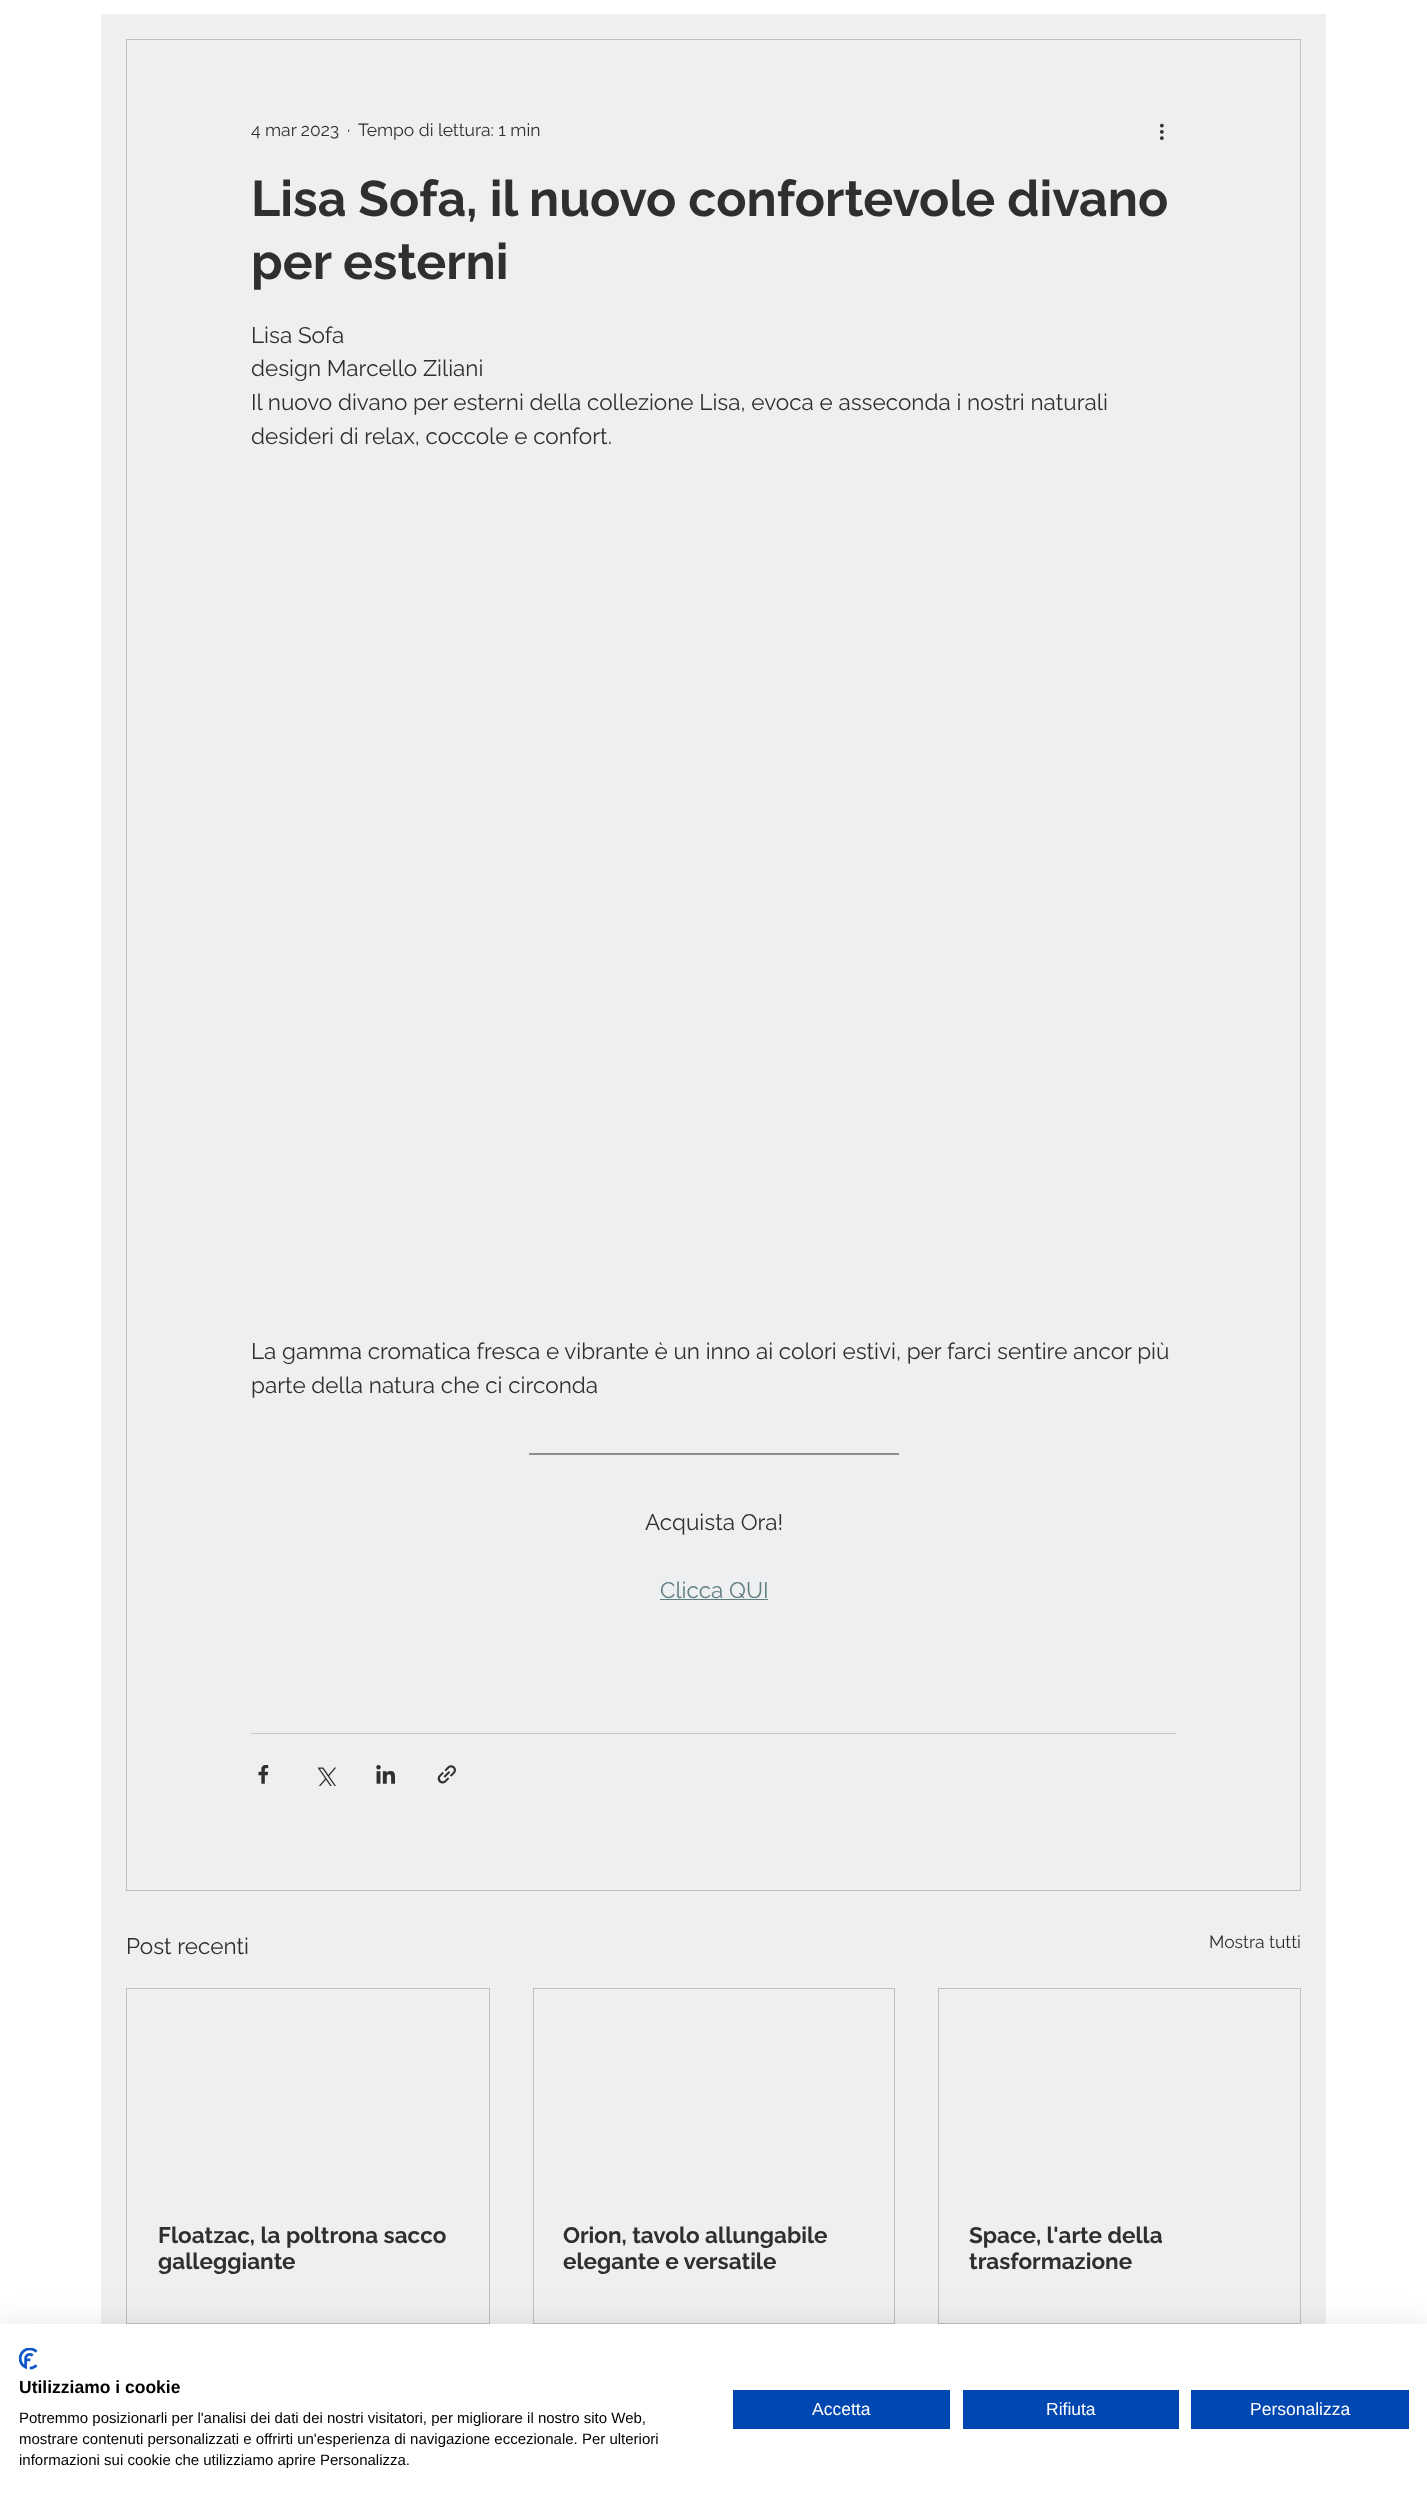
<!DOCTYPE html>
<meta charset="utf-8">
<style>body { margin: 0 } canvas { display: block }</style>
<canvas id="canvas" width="1427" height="2504"></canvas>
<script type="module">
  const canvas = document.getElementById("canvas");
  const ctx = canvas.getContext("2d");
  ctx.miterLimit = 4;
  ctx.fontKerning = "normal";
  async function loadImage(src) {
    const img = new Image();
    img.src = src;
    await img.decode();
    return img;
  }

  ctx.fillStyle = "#ffffff";
  ctx.fillRect(0, 0, 1427, 2504);
  ctx.fillStyle = "#edeff0";
  ctx.fillRect(101, 14, 1225, 2310);
  ctx.strokeStyle = "#bebfc0";
  ctx.strokeRect(126.5, 39.5, 1174, 1851);
  ctx.font = "17.5px Raleway";
  ctx.fillStyle = "#2f2f2f";
  ctx.fillText("4 mar 2023", 251, 136);
  ctx.fillText("·", 347, 136);
  ctx.fillText("Tempo di lettura: 1 min", 358, 136);
  ctx.drawImage(await loadImage("img1.png"), 1160, 123, 4, 17);
  ctx.font = "bold 50px Raleway";
  ctx.fillText("Lisa Sofa, il nuovo confortevole divano", 251, 216);
  ctx.fillText("per esterni", 251, 279);
  ctx.font = "22.5px Raleway";
  ctx.fillText("Lisa Sofa", 251, 343);
  ctx.fillText("design Marcello Ziliani", 251, 376);
  ctx.fillText("Il nuovo divano per esterni della collezione Lisa, evoca e asseconda i nostri naturali", 251, 410);
  ctx.fillText("desideri di relax, coccole e confort.", 251, 444);
  ctx.fillText("La gamma cromatica fresca e vibrante è un inno ai colori estivi, per farci sentire ancor più", 251, 1359);
  ctx.fillText("parte della natura che ci circonda", 251, 1393);
  ctx.beginPath();
  ctx.moveTo(529, 1454);
  ctx.lineTo(899, 1454);
  ctx.strokeStyle = "#2f2f2f";
  ctx.lineWidth = 1.2;
  ctx.stroke();
  ctx.fillText("Acquista Ora!", 645, 1530);
  ctx.fillStyle = "#607d82";
  ctx.fillText("Clicca QUI", 660, 1598);
  ctx.fillRect(660, 1599, 108, 1);
  ctx.fillStyle = "#c7c9c9";
  ctx.fillRect(251, 1733, 925, 1);
  ctx.drawImage(await loadImage("img2.png"), 258, 1765, 11, 19);
  ctx.drawImage(await loadImage("img3.png"), 317, 1767, 19, 19);
  ctx.drawImage(await loadImage("img4.png"), 376, 1765, 19, 19);
  ctx.drawImage(await loadImage("img5.png"), 437, 1765, 19, 19);
  ctx.fillStyle = "#2f2f2f";
  ctx.fillText("Post recenti", 126, 1954);
  ctx.font = "17.5px Raleway";
  ctx.fillText("Mostra tutti", 1209, 1948);
  ctx.strokeStyle = "#bebfc0";
  ctx.lineWidth = 1;
  ctx.strokeRect(126.5, 1988.5, 363, 335);
  ctx.font = "bold 22.5px Raleway";
  ctx.fillText("Floatzac, la poltrona sacco", 158, 2243);
  ctx.fillText("galleggiante", 158, 2269);
  ctx.strokeRect(533.5, 1988.5, 361, 335);
  ctx.fillText("Orion, tavolo allungabile", 563, 2243);
  ctx.fillText("elegante e versatile", 563, 2269);
  ctx.strokeRect(938.5, 1988.5, 362, 335);
  ctx.fillText("Space, l'arte della", 969, 2243);
  ctx.fillText("trasformazione", 969, 2269);
  ctx.fillStyle = "rgba(0, 0, 0, 0.1)";
  ctx.filter = "blur(15px)";
  ctx.beginPath();
  ctx.rect(0, 2324, 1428, 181);
  ctx.fill();
  ctx.filter = "none";
  ctx.fillStyle = "#ffffff";
  ctx.fillRect(0, 2324, 1427, 180);
  ctx.drawImage(await loadImage("img6.png"), 19, 2348, 19, 22);
  ctx.font = "bold 17.5px Liberation Sans";
  ctx.fillStyle = "#000000";
  ctx.fillText("Utilizziamo i cookie", 19, 2393);
  ctx.font = "15px Liberation Sans";
  ctx.fillText("Potremmo posizionarli per l'analisi dei dati dei nostri visitatori, per migliorare il nostro sito Web,", 19, 2423);
  ctx.fillText("mostrare contenuti personalizzati e offrirti un'esperienza di navigazione eccezionale. Per ulteriori", 19, 2444);
  ctx.fillText("informazioni sui cookie che utilizziamo aprire Personalizza.", 19, 2465);
  ctx.fillStyle = "#0047b2";
  ctx.fillRect(733, 2390, 217, 39);
  ctx.font = "17.5px Liberation Sans";
  ctx.fillStyle = "#ffffff";
  ctx.fillText("Accetta", 812, 2415);
  ctx.fillStyle = "#0047b2";
  ctx.fillRect(963, 2390, 216, 39);
  ctx.fillStyle = "#ffffff";
  ctx.fillText("Rifiuta", 1046, 2415);
  ctx.fillStyle = "#0047b2";
  ctx.fillRect(1191, 2390, 218, 39);
  ctx.fillStyle = "#ffffff";
  ctx.fillText("Personalizza", 1250, 2415);
</script>
